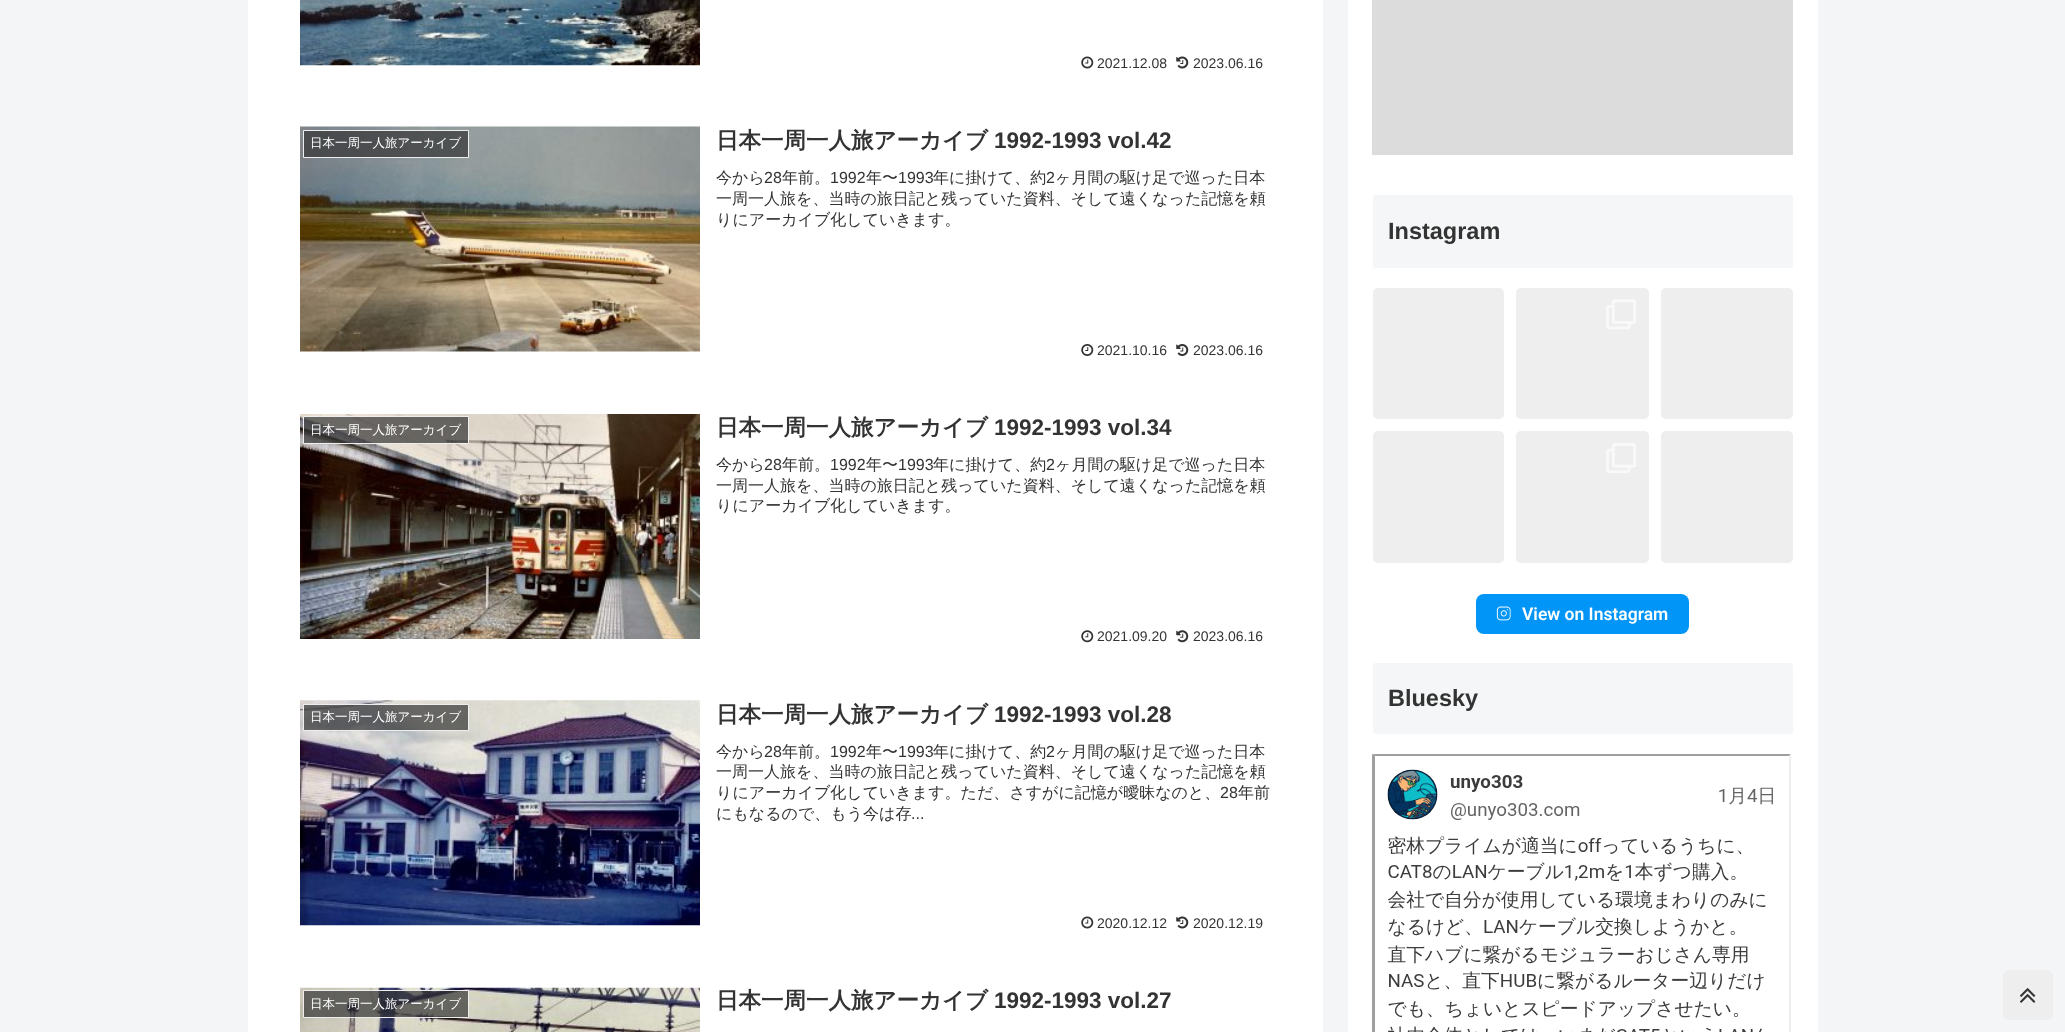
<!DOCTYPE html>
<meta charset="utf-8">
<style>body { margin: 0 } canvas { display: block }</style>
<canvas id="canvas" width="2065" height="1032"></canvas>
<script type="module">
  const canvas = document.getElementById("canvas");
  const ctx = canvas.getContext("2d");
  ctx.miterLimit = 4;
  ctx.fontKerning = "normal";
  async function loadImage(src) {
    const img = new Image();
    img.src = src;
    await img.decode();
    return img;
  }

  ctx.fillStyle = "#f4f5f7";
  ctx.fillRect(0, 0, 2065, 1032);
  ctx.fillStyle = "#ffffff";
  ctx.fillRect(248, 0, 1075, 1032);
  ctx.drawImage(await loadImage("img1.png"), 300, 0, 400, 66);
  ctx.drawImage(await loadImage("img2.png"), 1081, 56, 13, 13);
  ctx.font = "14px Liberation Sans";
  ctx.fillStyle = "#333333";
  ctx.fillText("2021.12.08", 1097, 68);
  ctx.drawImage(await loadImage("img3.png"), 1176, 56, 13, 13);
  ctx.fillText("2023.06.16", 1193, 68);
  ctx.drawImage(await loadImage("img4.png"), 300, 126, 400, 226);
  ctx.fillStyle = "rgba(51, 51, 51, 0.7)";
  ctx.beginPath();
  ctx.rect(303.5, 130.5, 165, 27);
  ctx.fill();
  ctx.strokeStyle = "#eeeeee";
  ctx.stroke();
  ctx.font = "500 12.5px WenQuanYi Zen Hei";
  ctx.fillStyle = "#ffffff";
  ctx.fillText("日本一周一人旅アーカイブ", 310, 147);
  ctx.font = "bold 22.5px WenQuanYi Zen Hei";
  ctx.fillStyle = "#333333";
  ctx.fillText("日本一周一人旅アーカイブ", 716, 148);
  ctx.font = "bold 22.5px Liberation Sans";
  ctx.fillText("1992-1993 vol.42", 994, 148);
  ctx.font = "500 16px WenQuanYi Zen Hei";
  ctx.fillText("今から", 716, 183);
  ctx.font = "16px Liberation Sans";
  ctx.fillText("28", 764, 183);
  ctx.font = "500 16px WenQuanYi Zen Hei";
  ctx.fillText("年前。", 782, 183);
  ctx.font = "16px Liberation Sans";
  ctx.fillText("1992", 830, 183);
  ctx.font = "500 16px WenQuanYi Zen Hei";
  ctx.fillText("年〜", 866, 183);
  ctx.font = "16px Liberation Sans";
  ctx.fillText("1993", 898, 183);
  ctx.font = "500 16px WenQuanYi Zen Hei";
  ctx.fillText("年に掛けて、約", 933, 183);
  ctx.font = "16px Liberation Sans";
  ctx.fillText("2", 1046, 183);
  ctx.font = "500 16px WenQuanYi Zen Hei";
  ctx.fillText("ヶ月間の駆け足で巡った日本", 1055, 183);
  ctx.fillText("一周一人旅を、当時の旅日記と残っていた資料、そして遠くなった記憶を頼", 716, 204);
  ctx.fillText("りにアーカイブ化していきます。", 716, 225);
  ctx.drawImage(await loadImage("img5.png"), 1081, 344, 13, 12);
  ctx.font = "14px Liberation Sans";
  ctx.fillText("2021.10.16", 1097, 355);
  ctx.drawImage(await loadImage("img6.png"), 1176, 344, 13, 12);
  ctx.fillText("2023.06.16", 1193, 355);
  ctx.drawImage(await loadImage("img7.png"), 300, 414, 400, 225);
  ctx.fillStyle = "rgba(51, 51, 51, 0.7)";
  ctx.beginPath();
  ctx.rect(303.5, 416.5, 165, 27);
  ctx.fill();
  ctx.stroke();
  ctx.font = "500 12.5px WenQuanYi Zen Hei";
  ctx.fillStyle = "#ffffff";
  ctx.fillText("日本一周一人旅アーカイブ", 310, 434);
  ctx.font = "bold 22.5px WenQuanYi Zen Hei";
  ctx.fillStyle = "#333333";
  ctx.fillText("日本一周一人旅アーカイブ", 716, 435);
  ctx.font = "bold 22.5px Liberation Sans";
  ctx.fillText("1992-1993 vol.34", 994, 435);
  ctx.font = "500 16px WenQuanYi Zen Hei";
  ctx.fillText("今から", 716, 470);
  ctx.font = "16px Liberation Sans";
  ctx.fillText("28", 764, 470);
  ctx.font = "500 16px WenQuanYi Zen Hei";
  ctx.fillText("年前。", 782, 470);
  ctx.font = "16px Liberation Sans";
  ctx.fillText("1992", 830, 470);
  ctx.font = "500 16px WenQuanYi Zen Hei";
  ctx.fillText("年〜", 866, 470);
  ctx.font = "16px Liberation Sans";
  ctx.fillText("1993", 898, 470);
  ctx.font = "500 16px WenQuanYi Zen Hei";
  ctx.fillText("年に掛けて、約", 933, 470);
  ctx.font = "16px Liberation Sans";
  ctx.fillText("2", 1046, 470);
  ctx.font = "500 16px WenQuanYi Zen Hei";
  ctx.fillText("ヶ月間の駆け足で巡った日本", 1055, 470);
  ctx.fillText("一周一人旅を、当時の旅日記と残っていた資料、そして遠くなった記憶を頼", 716, 491);
  ctx.fillText("りにアーカイブ化していきます。", 716, 511);
  ctx.drawImage(await loadImage("img8.png"), 1081, 630, 13, 13);
  ctx.font = "14px Liberation Sans";
  ctx.fillText("2021.09.20", 1097, 641);
  ctx.drawImage(await loadImage("img9.png"), 1176, 630, 13, 13);
  ctx.fillText("2023.06.16", 1193, 641);
  ctx.drawImage(await loadImage("img10.png"), 300, 700, 400, 226);
  ctx.fillStyle = "rgba(51, 51, 51, 0.7)";
  ctx.beginPath();
  ctx.rect(303.5, 704.5, 165, 26);
  ctx.fill();
  ctx.stroke();
  ctx.font = "500 12.5px WenQuanYi Zen Hei";
  ctx.fillStyle = "#ffffff";
  ctx.fillText("日本一周一人旅アーカイブ", 310, 721);
  ctx.font = "bold 22.5px WenQuanYi Zen Hei";
  ctx.fillStyle = "#333333";
  ctx.fillText("日本一周一人旅アーカイブ", 716, 722);
  ctx.font = "bold 22.5px Liberation Sans";
  ctx.fillText("1992-1993 vol.28", 994, 722);
  ctx.font = "500 16px WenQuanYi Zen Hei";
  ctx.fillText("今から", 716, 757);
  ctx.font = "16px Liberation Sans";
  ctx.fillText("28", 764, 757);
  ctx.font = "500 16px WenQuanYi Zen Hei";
  ctx.fillText("年前。", 782, 757);
  ctx.font = "16px Liberation Sans";
  ctx.fillText("1992", 830, 757);
  ctx.font = "500 16px WenQuanYi Zen Hei";
  ctx.fillText("年〜", 866, 757);
  ctx.font = "16px Liberation Sans";
  ctx.fillText("1993", 898, 757);
  ctx.font = "500 16px WenQuanYi Zen Hei";
  ctx.fillText("年に掛けて、約", 933, 757);
  ctx.font = "16px Liberation Sans";
  ctx.fillText("2", 1046, 757);
  ctx.font = "500 16px WenQuanYi Zen Hei";
  ctx.fillText("ヶ月間の駆け足で巡った日本", 1055, 757);
  ctx.fillText("一周一人旅を、当時の旅日記と残っていた資料、そして遠くなった記憶を頼", 716, 777);
  ctx.fillText("りにアーカイブ化していきます。ただ、さすがに記憶が曖昧なのと、", 716, 798);
  ctx.font = "16px Liberation Sans";
  ctx.fillText("28", 1220, 798);
  ctx.font = "500 16px WenQuanYi Zen Hei";
  ctx.fillText("年前", 1238, 798);
  ctx.fillText("にもなるので、もう今は存", 716, 819);
  ctx.font = "16px Liberation Sans";
  ctx.fillText("...", 911, 819);
  ctx.drawImage(await loadImage("img2.png"), 1081, 916, 13, 13);
  ctx.font = "14px Liberation Sans";
  ctx.fillText("2020.12.12", 1097, 928);
  ctx.drawImage(await loadImage("img3.png"), 1176, 916, 13, 13);
  ctx.fillText("2020.12.19", 1193, 928);
  ctx.drawImage(await loadImage("img11.png"), 300, 987, 400, 45);
  ctx.fillStyle = "rgba(51, 51, 51, 0.7)";
  ctx.beginPath();
  ctx.rect(303.5, 990.5, 165, 27);
  ctx.fill();
  ctx.stroke();
  ctx.font = "500 12.5px WenQuanYi Zen Hei";
  ctx.fillStyle = "#ffffff";
  ctx.fillText("日本一周一人旅アーカイブ", 310, 1008);
  ctx.font = "bold 22.5px WenQuanYi Zen Hei";
  ctx.fillStyle = "#333333";
  ctx.fillText("日本一周一人旅アーカイブ", 716, 1008);
  ctx.font = "bold 22.5px Liberation Sans";
  ctx.fillText("1992-1993 vol.27", 994, 1008);
  ctx.fillStyle = "#ffffff";
  ctx.fillRect(1348, 0, 470, 1032);
  ctx.fillStyle = "#dcdcdd";
  ctx.fillRect(1372, 0, 421, 155);
  ctx.fillStyle = "#f5f6f7";
  ctx.beginPath();
  ctx.roundRect(1373, 195, 420, 73, 2.5);
  ctx.fill();
  ctx.font = "bold 23.5px Liberation Sans";
  ctx.fillStyle = "#333333";
  ctx.fillText("Instagram", 1388, 239);
  ctx.fillStyle = "#eeeeee";
  ctx.beginPath();
  ctx.roundRect(1373, 288, 131, 131, 5);
  ctx.fill();
  ctx.beginPath();
  ctx.roundRect(1516, 288, 133, 131, 5);
  ctx.fill();
  ctx.drawImage(await loadImage("img12.png"), 1606, 299, 30, 31);
  ctx.beginPath();
  ctx.roundRect(1661, 288, 132, 131, 5);
  ctx.fill();
  ctx.beginPath();
  ctx.roundRect(1373, 431, 131, 132, 5);
  ctx.fill();
  ctx.beginPath();
  ctx.roundRect(1516, 431, 133, 132, 5);
  ctx.fill();
  ctx.drawImage(await loadImage("img13.png"), 1606, 443, 30, 30);
  ctx.beginPath();
  ctx.roundRect(1661, 431, 132, 132, 5);
  ctx.fill();
  ctx.fillStyle = "#0095f6";
  ctx.beginPath();
  ctx.roundRect(1476, 594, 213, 40, 8);
  ctx.fill();
  ctx.drawImage(await loadImage("img14.png"), 1496, 606, 15, 15);
  ctx.font = "600 17.5px Roboto";
  ctx.fillStyle = "#ffffff";
  ctx.fillText("View on Instagram", 1522, 620);
  ctx.fillStyle = "#f5f6f7";
  ctx.beginPath();
  ctx.roundRect(1373, 663, 420, 71, 2.5);
  ctx.fill();
  ctx.font = "bold 23.5px Liberation Sans";
  ctx.fillStyle = "#333333";
  ctx.fillText("Bluesky", 1388, 706);
  ctx.fillStyle = "#9f9f9f";
  ctx.beginPath();
  ctx.moveTo(1372, 754);
  ctx.lineTo(1791, 754);
  ctx.lineTo(1789, 756);
  ctx.lineTo(1375, 756);
  ctx.closePath();
  ctx.fill();
  ctx.beginPath();
  ctx.moveTo(1372, 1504);
  ctx.lineTo(1372, 754);
  ctx.lineTo(1375, 756);
  ctx.lineTo(1375, 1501);
  ctx.closePath();
  ctx.fill();
  ctx.drawImage(await loadImage("img15.png"), 1387, 769, 386, 263);
  ctx.fillStyle = "#eeeeee";
  ctx.beginPath();
  ctx.moveTo(1791, 754);
  ctx.lineTo(1791, 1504);
  ctx.lineTo(1789, 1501);
  ctx.lineTo(1789, 756);
  ctx.closePath();
  ctx.fill();
  ctx.beginPath();
  ctx.roundRect(2003, 970, 50, 50, 6);
  ctx.fill();
  ctx.drawImage(await loadImage("img16.png"), 2020, 988, 16, 15);
</script>
